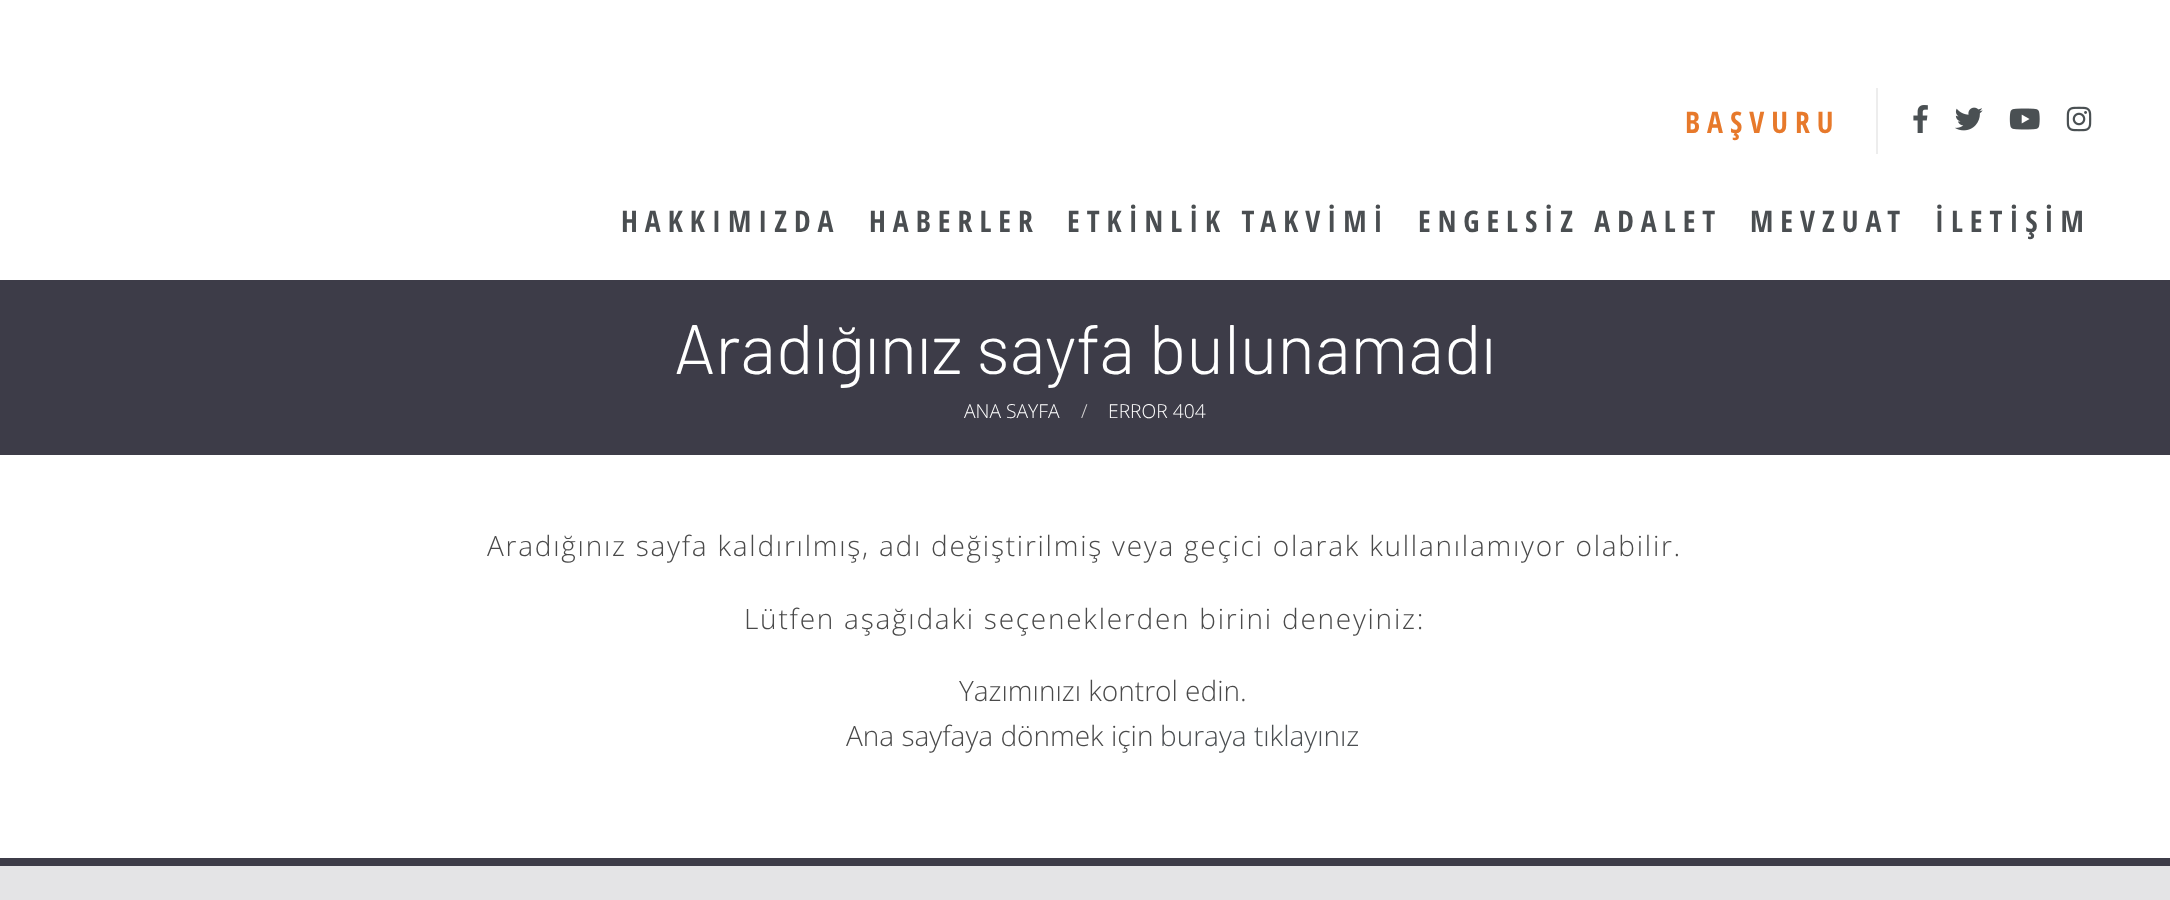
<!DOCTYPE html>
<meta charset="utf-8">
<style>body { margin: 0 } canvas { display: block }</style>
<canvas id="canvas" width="2170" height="900"></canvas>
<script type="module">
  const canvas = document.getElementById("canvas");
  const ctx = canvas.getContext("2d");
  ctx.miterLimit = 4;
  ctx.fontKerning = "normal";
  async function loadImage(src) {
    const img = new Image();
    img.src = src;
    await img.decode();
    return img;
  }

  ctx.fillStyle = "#ffffff";
  ctx.fillRect(0, 0, 2170, 900);
  ctx.letterSpacing = "7px";
  ctx.font = "bold 29.75px Open Sans Condensed";
  ctx.fillStyle = "#e7792b";
  ctx.fillText("BAŞVURU", 1685, 133);
  ctx.fillStyle = "#ededed";
  ctx.fillRect(1876, 88, 2, 66);
  ctx.drawImage(await loadImage("img1.png"), 1913, 105, 15, 28);
  ctx.drawImage(await loadImage("img2.png"), 1955, 107, 28, 24);
  ctx.drawImage(await loadImage("img3.png"), 2009, 108, 31, 22);
  ctx.drawImage(await loadImage("img4.png"), 2066, 106, 26, 26);
  ctx.fillStyle = "#4a4e51";
  ctx.fillText("HAKKIMIZDA", 621, 232);
  ctx.fillText("HABERLER", 869, 232);
  ctx.fillText("ETKİNLİK TAKVİMİ", 1067, 232);
  ctx.fillText("ENGELSİZ ADALET", 1418, 232);
  ctx.fillText("MEVZUAT", 1750, 232);
  ctx.fillText("İLETİŞİM", 1935, 232);
  ctx.fillStyle = "#3d3c48";
  ctx.fillRect(0, 280, 2170, 175);
  ctx.letterSpacing = "0px";
  ctx.font = "300 70px Barlow";
  ctx.fillStyle = "#ffffff";
  ctx.fillText("Aradığınız sayfa bulunamadı", 674, 374);
  ctx.font = "300 19.25px Open Sans";
  ctx.fillText("ANA SAYFA", 964, 418);
  ctx.fillStyle = "#d6d5d5";
  ctx.fillText("/", 1081, 418);
  ctx.fillStyle = "#ffffff";
  ctx.fillText("ERROR 404", 1108, 418);
  ctx.letterSpacing = "1.75px";
  ctx.font = "300 28px Open Sans";
  ctx.fillStyle = "#4a4a4a";
  ctx.fillText("Aradığınız sayfa kaldırılmış, adı değiştirilmiş veya geçici olarak kullanılamıyor olabilir.", 487, 556);
  ctx.fillText("Lütfen aşağıdaki seçeneklerden birini deneyiniz:", 744, 629);
  ctx.letterSpacing = "0px";
  ctx.fillText("Yazımınızı kontrol edin.", 959, 701);
  ctx.fillText("Ana sayfaya dönmek için", 846, 746);
  ctx.fillStyle = "#4a4e51";
  ctx.fillText("buraya tıklayınız", 1160, 746);
  ctx.fillStyle = "#e4e4e6";
  ctx.fillRect(0, 866, 2170, 34);
  ctx.fillStyle = "#3d3c48";
  ctx.fillRect(0, 858, 2170, 8);
</script>
